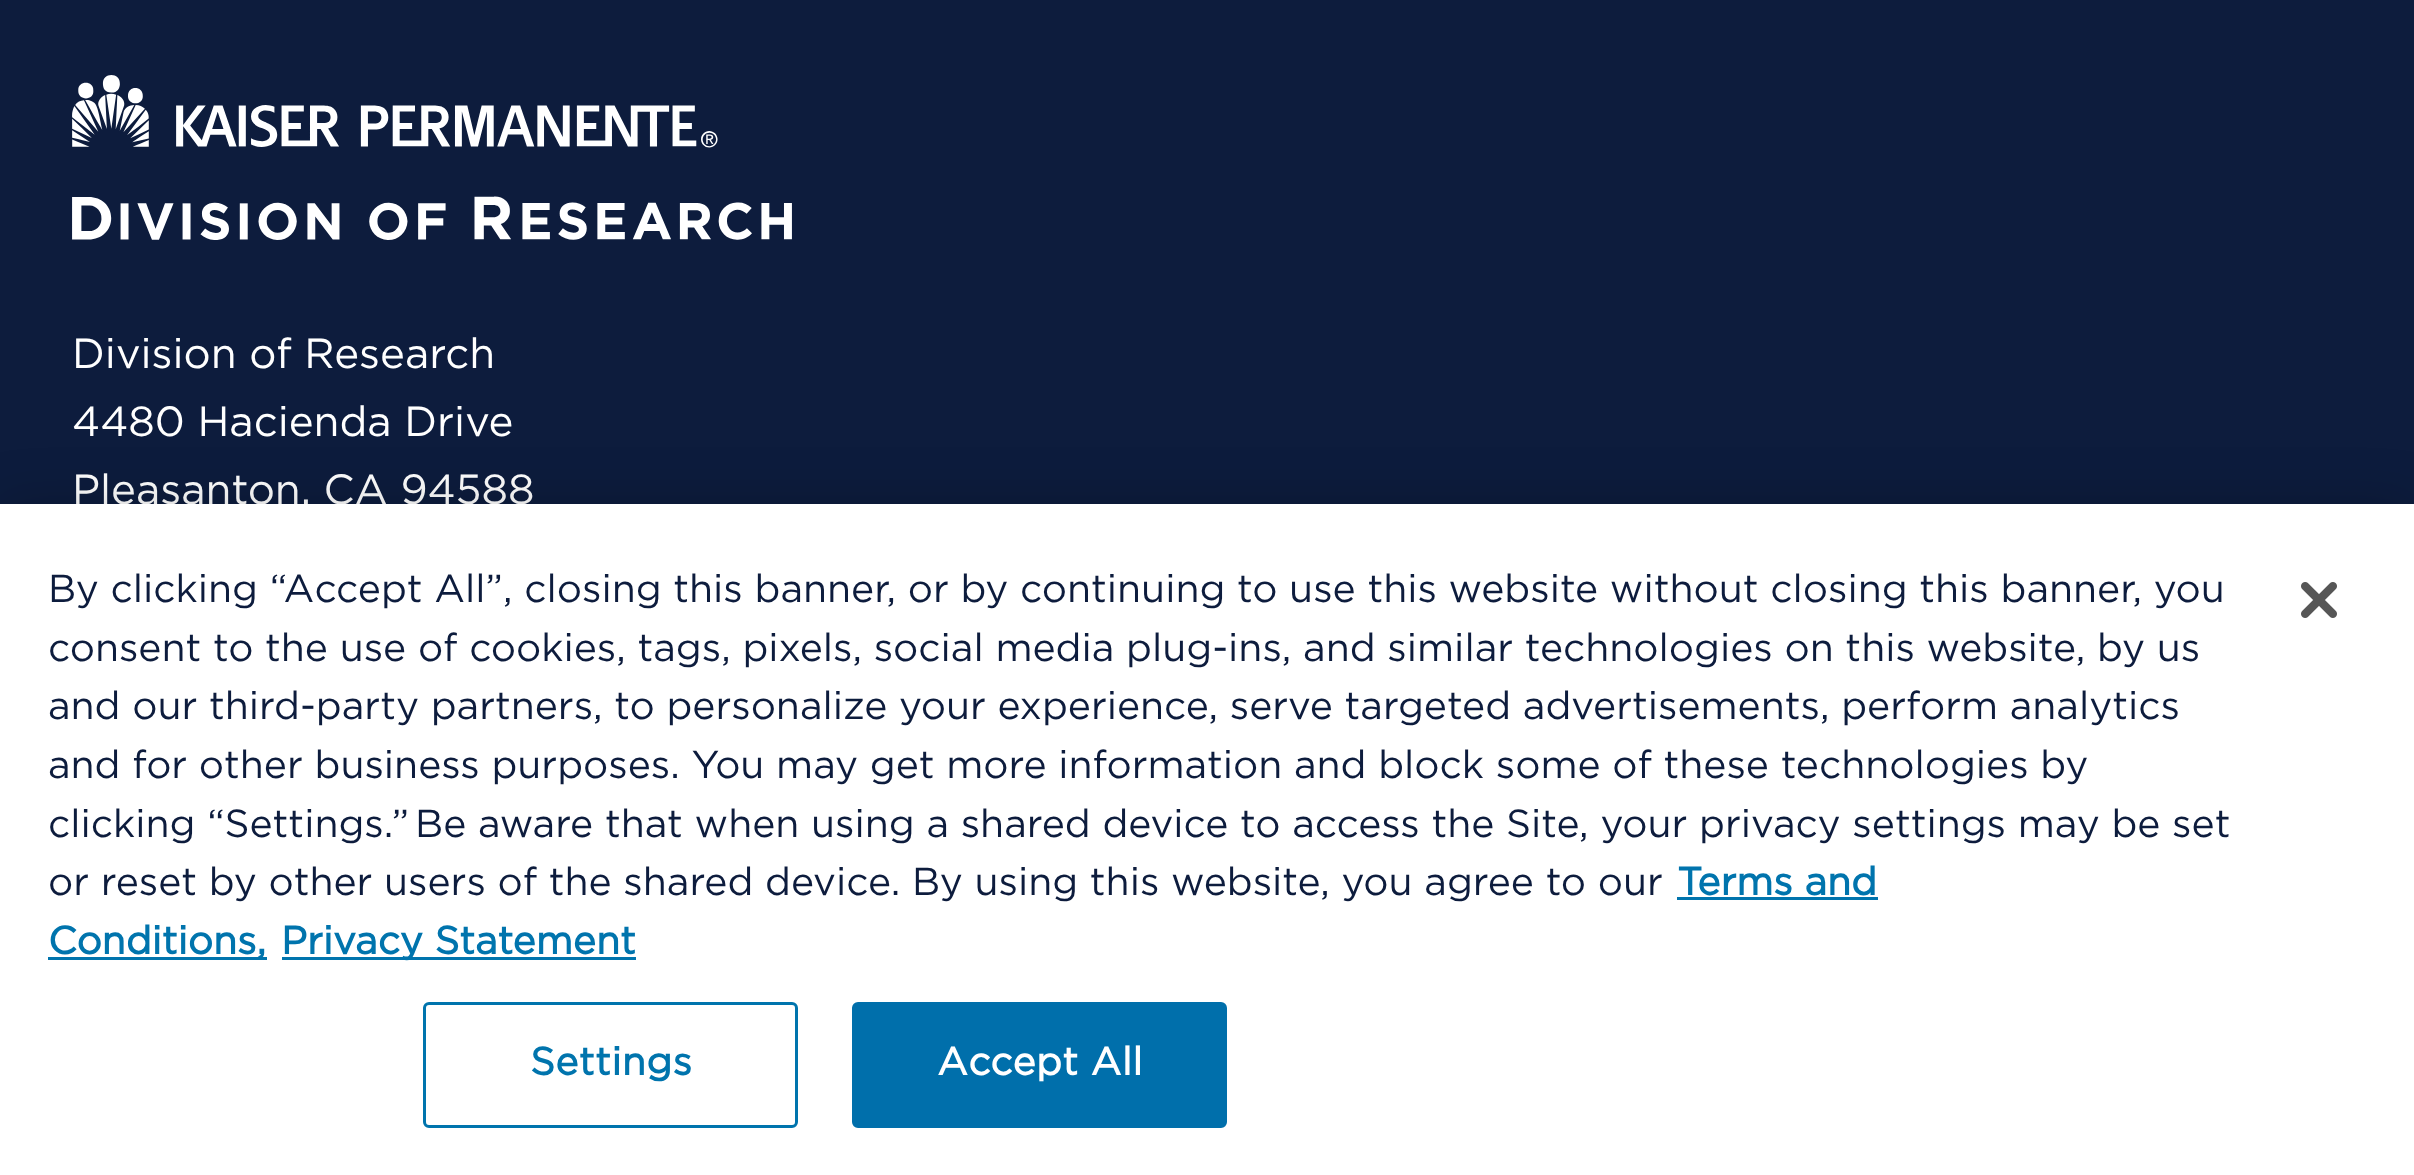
<!DOCTYPE html>
<meta charset="utf-8">
<style>body { margin: 0 } canvas { display: block }</style>
<canvas id="canvas" width="2414" height="1175"></canvas>
<script type="module">
  const canvas = document.getElementById("canvas");
  const ctx = canvas.getContext("2d");
  ctx.miterLimit = 4;
  ctx.fontKerning = "normal";
  async function loadImage(src) {
    const img = new Image();
    img.src = src;
    await img.decode();
    return img;
  }

  ctx.fillStyle = "#0d1c3d";
  ctx.fillRect(0, 0, 2414, 1175);
  ctx.drawImage(await loadImage("img1.png"), 72, 75, 720, 165);
  ctx.font = "42px Gotham";
  ctx.fillStyle = "#ffffff";
  ctx.fillText("Division of Research", 72, 368);
  ctx.fillText("4480 Hacienda Drive", 72, 436);
  ctx.fillText("Pleasanton, CA 94588", 72, 504);
  ctx.fillStyle = "rgba(0, 0, 0, 0.2)";
  ctx.filter = "blur(27px)";
  ctx.beginPath();
  ctx.rect(0, 504, 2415, 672);
  ctx.fill();
  ctx.filter = "none";
  ctx.fillStyle = "#ffffff";
  ctx.fillRect(0, 504, 2414, 671);
  ctx.font = "39.02px Gotham";
  ctx.fillStyle = "#0d1c3d";
  ctx.fillText("By clicking “Accept All”, closing this banner, or by continuing to use this website without closing this banner, you", 48, 602);
  ctx.fillText("consent to the use of cookies, tags, pixels, social media plug-ins, and similar technologies on this website, by us", 48, 661);
  ctx.fillText("and our third-party partners, to personalize your experience, serve targeted advertisements, perform analytics", 48, 719);
  ctx.fillText("and for other business purposes. You may get more information and block some of these technologies by", 48, 778);
  ctx.fillText("clicking “Settings.” Be aware that when using a shared device to access the Site, your privacy settings may be set", 48, 837);
  ctx.fillText("or reset by other users of the shared device. By using this website, you agree to our", 48, 895);
  ctx.font = "bold 39.02px Gotham";
  ctx.fillStyle = "#0074ad";
  ctx.fillText("Terms and", 1677, 895);
  ctx.fillRect(1677, 897, 201, 3);
  ctx.fillRect(48, 957, 219, 3);
  ctx.fillText("Conditions,", 48, 954);
  ctx.fillRect(282, 957, 354, 3);
  ctx.fillText("Privacy Statement", 281, 954);
  ctx.beginPath();
  ctx.roundRect(424.5, 1003.5, 372, 123, 4.5);
  ctx.strokeStyle = "#0074ad";
  ctx.lineWidth = 3;
  ctx.stroke();
  ctx.letterSpacing = "0.4px";
  ctx.fillText("Settings", 530, 1075);
  ctx.fillStyle = "#006fab";
  ctx.beginPath();
  ctx.roundRect(853.5, 1003.5, 372, 123, 4.5);
  ctx.fill();
  ctx.strokeStyle = "#006fab";
  ctx.stroke();
  ctx.fillStyle = "#ffffff";
  ctx.fillText("Accept All", 937, 1075);
  ctx.drawImage(await loadImage("img2.png"), 2301, 582, 36, 36);
</script>
